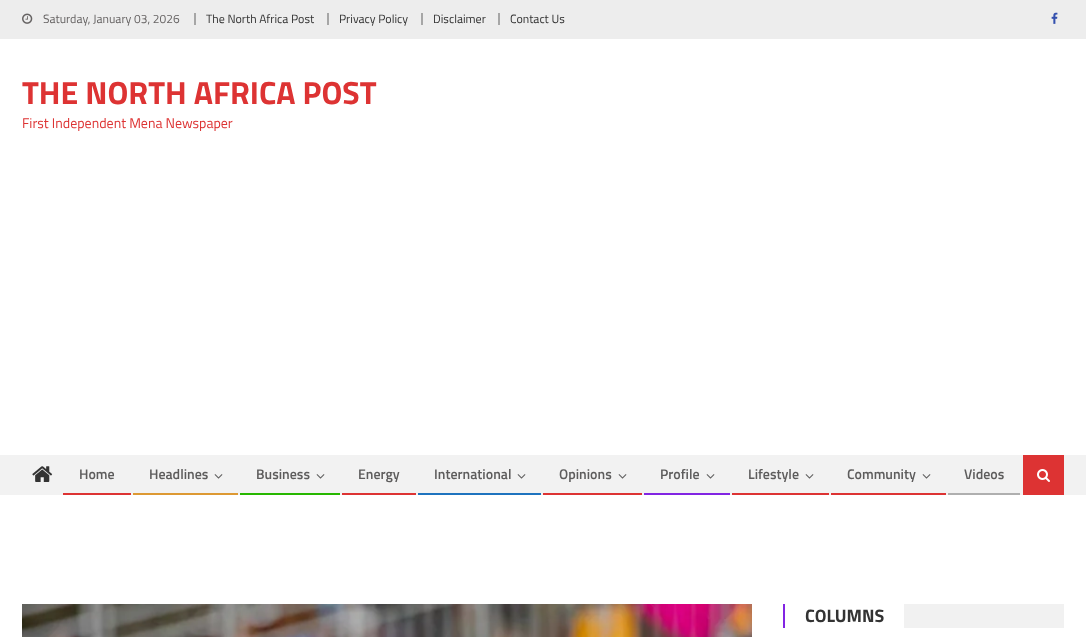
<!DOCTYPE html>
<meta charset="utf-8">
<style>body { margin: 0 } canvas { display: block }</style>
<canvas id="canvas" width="1086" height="637"></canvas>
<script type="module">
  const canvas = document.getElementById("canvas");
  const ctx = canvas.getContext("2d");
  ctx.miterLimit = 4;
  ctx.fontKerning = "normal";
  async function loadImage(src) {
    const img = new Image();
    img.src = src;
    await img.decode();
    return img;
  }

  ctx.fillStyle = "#ffffff";
  ctx.fillRect(0, 0, 1086, 637);
  ctx.fillStyle = "#ededed";
  ctx.fillRect(0, 0, 1086, 39);
  ctx.drawImage(await loadImage("img1.png"), 22, 13, 11, 11);
  ctx.font = "12px Titillium Web";
  ctx.fillStyle = "#666363";
  ctx.fillText("Saturday, January 03, 2026", 43, 23);
  ctx.fillStyle = "#a6a6a6";
  ctx.fillRect(194, 13, 2, 12);
  ctx.fillStyle = "#333333";
  ctx.fillText("The North Africa Post", 206, 23);
  ctx.fillStyle = "#a6a6a6";
  ctx.fillRect(327, 13, 2, 12);
  ctx.fillStyle = "#333333";
  ctx.fillText("Privacy Policy", 339, 23);
  ctx.fillStyle = "#a6a6a6";
  ctx.fillRect(421, 13, 2, 12);
  ctx.fillStyle = "#333333";
  ctx.fillText("Disclaimer", 433, 23);
  ctx.fillStyle = "#a6a6a6";
  ctx.fillRect(498, 13, 2, 12);
  ctx.fillStyle = "#333333";
  ctx.fillText("Contact Us", 510, 23);
  ctx.drawImage(await loadImage("img2.png"), 1051, 12, 7, 12);
  ctx.font = "bold 32px Titillium Web";
  ctx.fillStyle = "#dd3333";
  ctx.fillText("THE NORTH AFRICA POST", 22, 104);
  ctx.font = "14px Titillium Web";
  ctx.fillText("First Independent Mena Newspaper", 22, 128);
  ctx.fillStyle = "#f2f2f2";
  ctx.fillRect(0, 455, 1086, 40);
  ctx.drawImage(await loadImage("img3.png"), 32, 466, 21, 16);
  ctx.fillStyle = "#dd3333";
  ctx.fillRect(63, 493, 68, 2);
  ctx.font = "600 14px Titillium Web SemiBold";
  ctx.fillStyle = "#5d5c5c";
  ctx.fillText("Home", 79, 479);
  ctx.fillStyle = "#dd9933";
  ctx.fillRect(133, 493, 105, 2);
  ctx.fillStyle = "#5d5c5c";
  ctx.fillText("Headlines", 149, 479);
  ctx.drawImage(await loadImage("img4.png"), 214, 474, 9, 5);
  ctx.fillStyle = "#27b700";
  ctx.fillRect(240, 493, 100, 2);
  ctx.fillStyle = "#5d5c5c";
  ctx.fillText("Business", 256, 479);
  ctx.drawImage(await loadImage("img4.png"), 316, 474, 9, 5);
  ctx.fillStyle = "#dd3333";
  ctx.fillRect(342, 493, 74, 2);
  ctx.fillStyle = "#5d5c5c";
  ctx.fillText("Energy", 358, 479);
  ctx.fillStyle = "#1e73be";
  ctx.fillRect(418, 493, 123, 2);
  ctx.fillStyle = "#5d5c5c";
  ctx.fillText("International", 434, 479);
  ctx.drawImage(await loadImage("img4.png"), 517, 474, 9, 5);
  ctx.fillStyle = "#dd3333";
  ctx.fillRect(543, 493, 99, 2);
  ctx.fillStyle = "#5d5c5c";
  ctx.fillText("Opinions", 559, 479);
  ctx.drawImage(await loadImage("img4.png"), 618, 474, 9, 5);
  ctx.fillStyle = "#8224e3";
  ctx.fillRect(644, 493, 86, 2);
  ctx.fillStyle = "#5d5c5c";
  ctx.fillText("Profile", 660, 479);
  ctx.drawImage(await loadImage("img4.png"), 706, 474, 9, 5);
  ctx.fillStyle = "#dd3333";
  ctx.fillRect(732, 493, 97, 2);
  ctx.fillStyle = "#5d5c5c";
  ctx.fillText("Lifestyle", 748, 479);
  ctx.drawImage(await loadImage("img4.png"), 805, 474, 9, 5);
  ctx.fillStyle = "#dd3333";
  ctx.fillRect(831, 493, 115, 2);
  ctx.fillStyle = "#5d5c5c";
  ctx.fillText("Community", 847, 479);
  ctx.drawImage(await loadImage("img4.png"), 922, 474, 9, 5);
  ctx.fillStyle = "#afafaf";
  ctx.fillRect(948, 493, 72, 2);
  ctx.fillStyle = "#5d5c5c";
  ctx.fillText("Videos", 964, 479);
  ctx.fillStyle = "#dd3333";
  ctx.fillRect(1023, 455, 41, 40);
  ctx.drawImage(await loadImage("img5.png"), 1037, 469, 13, 13);
  ctx.drawImage(await loadImage("img6.png"), 22, 604, 730, 33);
  ctx.fillStyle = "#f1f1f1";
  ctx.fillRect(904, 604, 160, 24);
  ctx.fillStyle = "#8224e3";
  ctx.fillRect(783, 604, 2, 24);
  ctx.font = "bold 18px Titillium Web";
  ctx.fillStyle = "#333333";
  ctx.fillText("COLUMNS", 805, 622);
</script>
